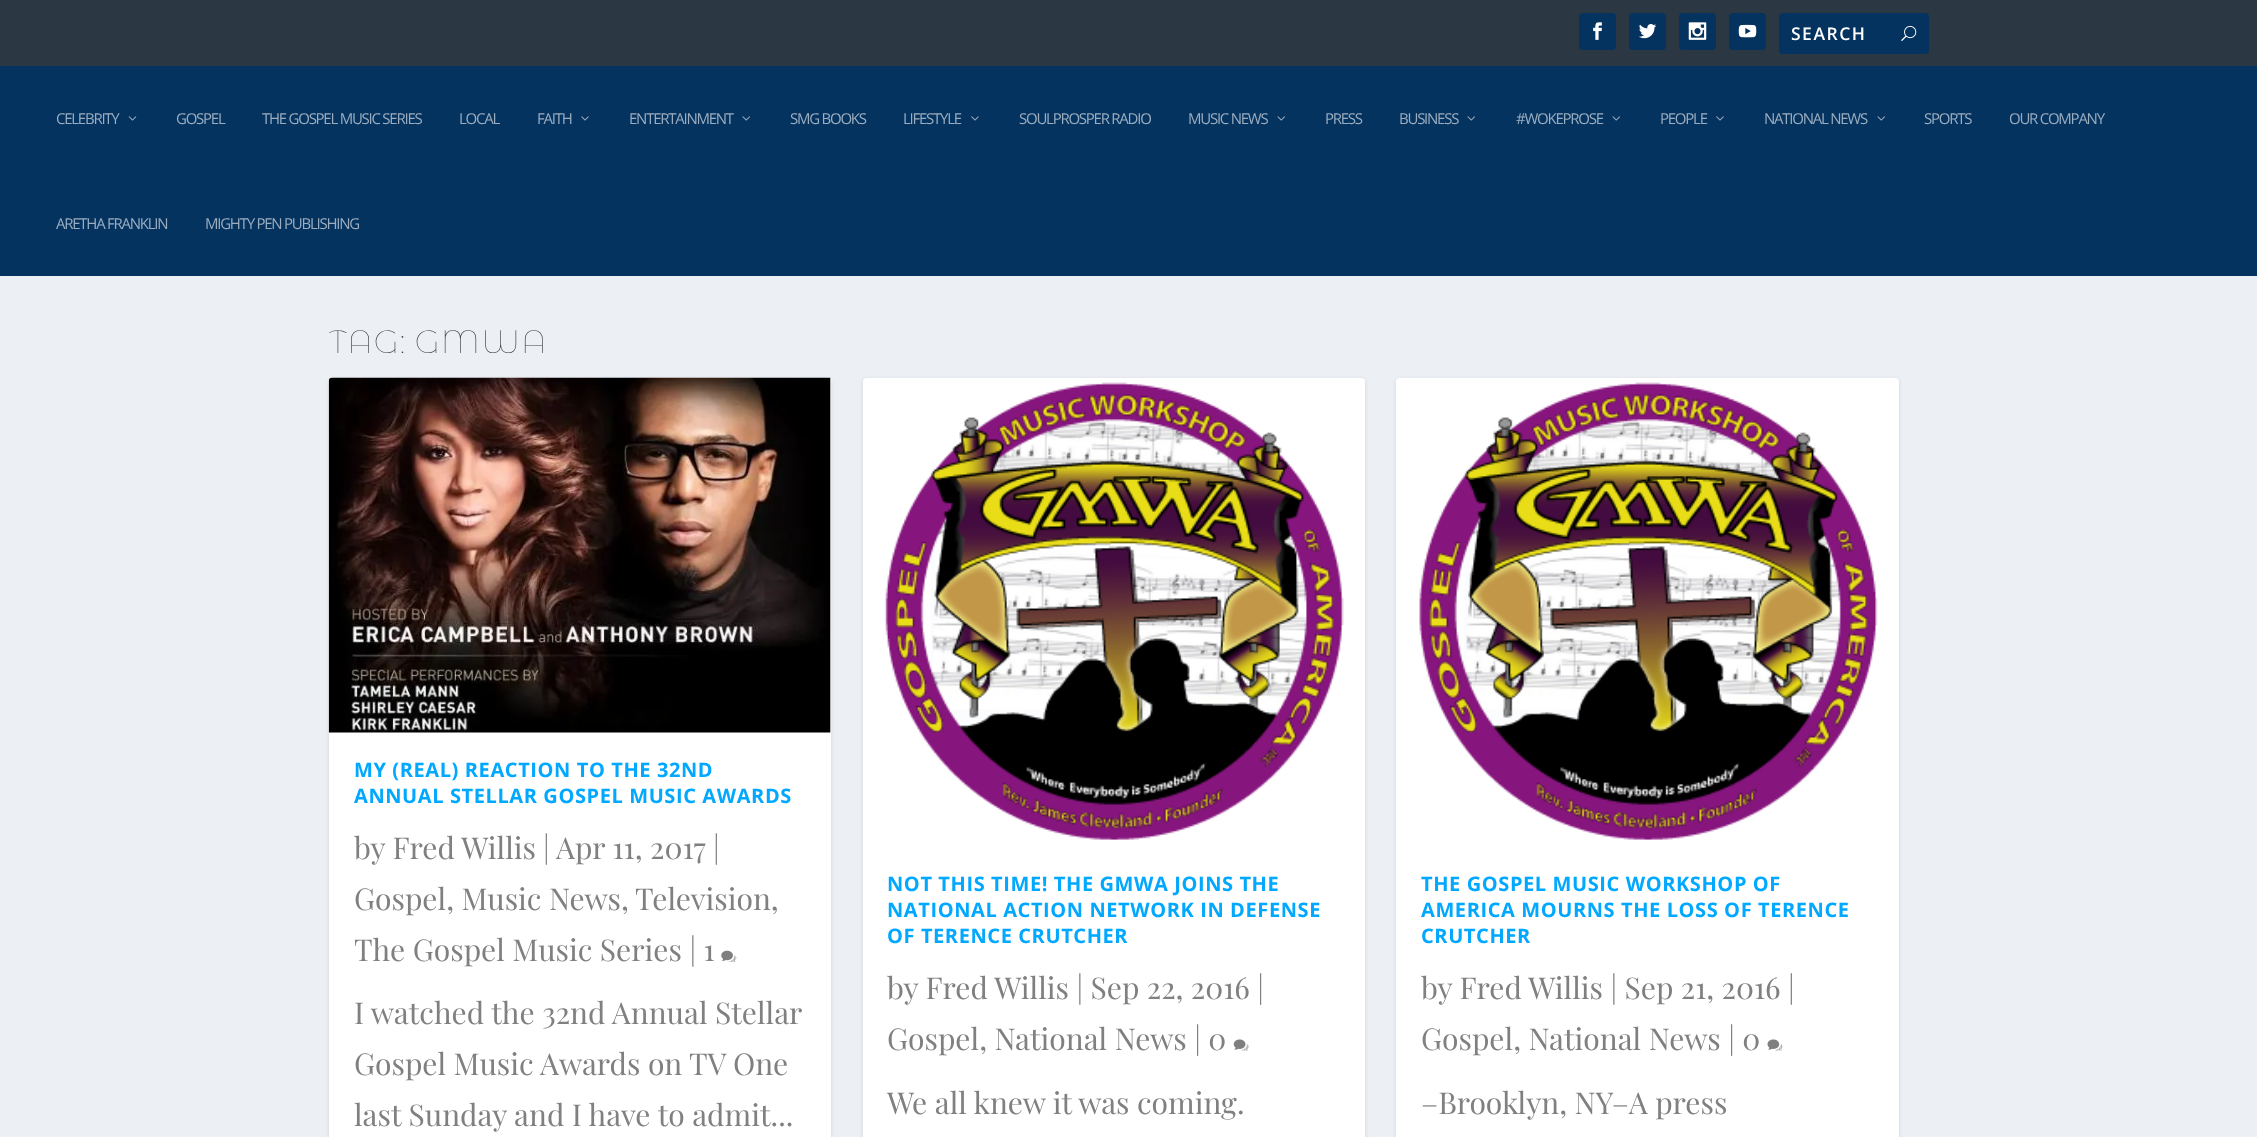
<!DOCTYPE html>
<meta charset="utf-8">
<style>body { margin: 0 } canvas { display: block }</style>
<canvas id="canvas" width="2257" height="1137"></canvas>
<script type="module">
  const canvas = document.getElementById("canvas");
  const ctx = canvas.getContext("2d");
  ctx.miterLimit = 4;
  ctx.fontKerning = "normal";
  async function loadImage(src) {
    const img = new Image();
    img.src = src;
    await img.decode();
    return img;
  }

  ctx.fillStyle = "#ecf0f5";
  ctx.fillRect(0, 0, 2257, 1137);
  ctx.fillStyle = "#2b3843";
  ctx.fillRect(0, 0, 2257, 66);
  ctx.fillStyle = "#053360";
  ctx.beginPath();
  ctx.roundRect(1579, 13, 37, 37, 4);
  ctx.fill();
  ctx.drawImage(await loadImage("img1.png"), 1593, 22, 9, 18);
  ctx.beginPath();
  ctx.roundRect(1629, 13, 37, 37, 4);
  ctx.fill();
  ctx.drawImage(await loadImage("img2.png"), 1639, 24, 18, 15);
  ctx.beginPath();
  ctx.roundRect(1679, 13, 37, 37, 4);
  ctx.fill();
  ctx.drawImage(await loadImage("img3.png"), 1688, 22, 19, 18);
  ctx.beginPath();
  ctx.roundRect(1729, 13, 37, 37, 4);
  ctx.fill();
  ctx.drawImage(await loadImage("img4.png"), 1738, 24, 19, 14);
  ctx.beginPath();
  ctx.roundRect(1779, 13, 150, 41, 4);
  ctx.fill();
  ctx.letterSpacing = "1.5px";
  ctx.font = "600 17.5px Open Sans";
  ctx.fillStyle = "#ffffff";
  ctx.fillText("SEARCH", 1791, 40);
  ctx.drawImage(await loadImage("img5.png"), 1901, 25, 16, 16);
  ctx.fillStyle = "#053360";
  ctx.fillRect(0, 66, 2257, 210);
  ctx.letterSpacing = "-1.25px";
  ctx.font = "15px Open Sans";
  ctx.fillStyle = "#9badbf";
  ctx.fillText("CELEBRITY", 56, 124);
  ctx.drawImage(await loadImage("img6.png"), 128, 116, 9, 5);
  ctx.fillText("GOSPEL", 176, 124);
  ctx.fillText("THE GOSPEL MUSIC SERIES", 262, 124);
  ctx.fillText("LOCAL", 459, 124);
  ctx.fillText("FAITH", 537, 124);
  ctx.drawImage(await loadImage("img7.png"), 581, 116, 8, 5);
  ctx.fillText("ENTERTAINMENT", 629, 124);
  ctx.drawImage(await loadImage("img8.png"), 742, 116, 8, 5);
  ctx.fillText("SMG BOOKS", 790, 124);
  ctx.fillText("LIFESTYLE", 903, 124);
  ctx.drawImage(await loadImage("img7.png"), 971, 116, 8, 5);
  ctx.fillText("SOULPROSPER RADIO", 1019, 124);
  ctx.fillText("MUSIC NEWS", 1188, 124);
  ctx.drawImage(await loadImage("img8.png"), 1277, 116, 8, 5);
  ctx.fillText("PRESS", 1325, 124);
  ctx.fillText("BUSINESS", 1399, 124);
  ctx.drawImage(await loadImage("img8.png"), 1467, 116, 8, 5);
  ctx.fillText("#WOKEPROSE", 1516, 124);
  ctx.drawImage(await loadImage("img8.png"), 1612, 116, 8, 5);
  ctx.fillText("PEOPLE", 1660, 124);
  ctx.drawImage(await loadImage("img7.png"), 1716, 116, 8, 5);
  ctx.fillText("NATIONAL NEWS", 1764, 124);
  ctx.drawImage(await loadImage("img8.png"), 1877, 116, 8, 5);
  ctx.fillText("SPORTS", 1924, 124);
  ctx.fillText("OUR COMPANY", 2009, 124);
  ctx.fillText("ARETHA FRANKLIN", 56, 229);
  ctx.fillText("MIGHTY PEN PUBLISHING", 205, 229);
  ctx.letterSpacing = "0.6px";
  ctx.font = "100 32.5px Montserrat Alternates";
  ctx.fillStyle = "#3b3c3d";
  ctx.fillText("TAG: GMWA", 329, 353);
  ctx.fillStyle = "rgba(0, 0, 0, 0.1)";
  ctx.filter = "blur(2px)";
  ctx.beginPath();
  ctx.roundRect(329, 379, 502, 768, 4);
  ctx.fill();
  ctx.filter = "none";
  ctx.fillStyle = "#ffffff";
  ctx.beginPath();
  ctx.roundRect(329, 378, 502, 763, 4);
  ctx.fill();
  ctx.drawImage(await loadImage("img9.png"), 328, 377, 504, 356);
  ctx.font = "bold 20px Open Sans";
  ctx.fillStyle = "#00a8ff";
  ctx.fillText("MY (REAL) REACTION TO THE 32ND", 354, 777);
  ctx.fillText("ANNUAL STELLAR GOSPEL MUSIC AWARDS", 354, 803);
  ctx.letterSpacing = "0px";
  ctx.font = "30px Playfair Display";
  ctx.fillStyle = "#808080";
  ctx.fillText("by Fred Willis", 354, 859);
  ctx.fillText("|", 543, 859);
  ctx.fillText("Apr 11, 2017", 556, 859);
  ctx.fillText("|", 713, 859);
  ctx.fillText("Gospel, Music News,", 354, 910);
  ctx.fillText("Television,", 635, 910);
  ctx.fillText("The Gospel Music Series | 1", 354, 961);
  ctx.drawImage(await loadImage("img10.png"), 721, 950, 16, 12);
  ctx.fillText("I watched the 32nd Annual Stellar", 354, 1024);
  ctx.fillText("Gospel Music Awards on TV One", 354, 1075);
  ctx.fillText("last Sunday and I have to admit...", 354, 1126);
  ctx.fillStyle = "rgba(0, 0, 0, 0.1)";
  ctx.filter = "blur(2px)";
  ctx.beginPath();
  ctx.roundRect(863, 379, 502, 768, 4);
  ctx.fill();
  ctx.filter = "none";
  ctx.fillStyle = "#ffffff";
  ctx.beginPath();
  ctx.roundRect(863, 378, 502, 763, 4);
  ctx.fill();
  ctx.drawImage(await loadImage("img11.png"), 885, 382, 459, 458);
  ctx.letterSpacing = "0.6px";
  ctx.font = "bold 20px Open Sans";
  ctx.fillStyle = "#00a8ff";
  ctx.fillText("NOT THIS TIME! THE GMWA JOINS THE", 887, 891);
  ctx.fillText("NATIONAL ACTION NETWORK IN DEFENSE", 887, 917);
  ctx.fillText("OF TERENCE CRUTCHER", 887, 943);
  ctx.letterSpacing = "0px";
  ctx.font = "30px Playfair Display";
  ctx.fillStyle = "#808080";
  ctx.fillText("by Fred Willis | Sep 22, 2016 |", 887, 999);
  ctx.fillText("Gospel, National News | 0", 887, 1050);
  ctx.drawImage(await loadImage("img12.png"), 1233, 1039, 16, 12);
  ctx.fillText("We all knew it was coming.", 887, 1114);
  ctx.fillStyle = "rgba(0, 0, 0, 0.1)";
  ctx.filter = "blur(2px)";
  ctx.beginPath();
  ctx.roundRect(1396, 379, 503, 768, 4);
  ctx.fill();
  ctx.filter = "none";
  ctx.fillStyle = "#ffffff";
  ctx.beginPath();
  ctx.roundRect(1396, 378, 503, 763, 4);
  ctx.fill();
  ctx.drawImage(await loadImage("img13.png"), 1419, 382, 459, 458);
  ctx.letterSpacing = "0.6px";
  ctx.font = "bold 20px Open Sans";
  ctx.fillStyle = "#00a8ff";
  ctx.fillText("THE GOSPEL MUSIC WORKSHOP OF", 1421, 891);
  ctx.fillText("AMERICA MOURNS THE LOSS OF TERENCE", 1421, 917);
  ctx.fillText("CRUTCHER", 1421, 943);
  ctx.letterSpacing = "0px";
  ctx.font = "30px Playfair Display";
  ctx.fillStyle = "#808080";
  ctx.fillText("by Fred Willis | Sep 21, 2016 |", 1421, 999);
  ctx.fillText("Gospel, National News | 0", 1421, 1050);
  ctx.drawImage(await loadImage("img14.png"), 1767, 1039, 16, 12);
  ctx.fillText("–Brooklyn, NY–A press", 1421, 1114);
</script>
